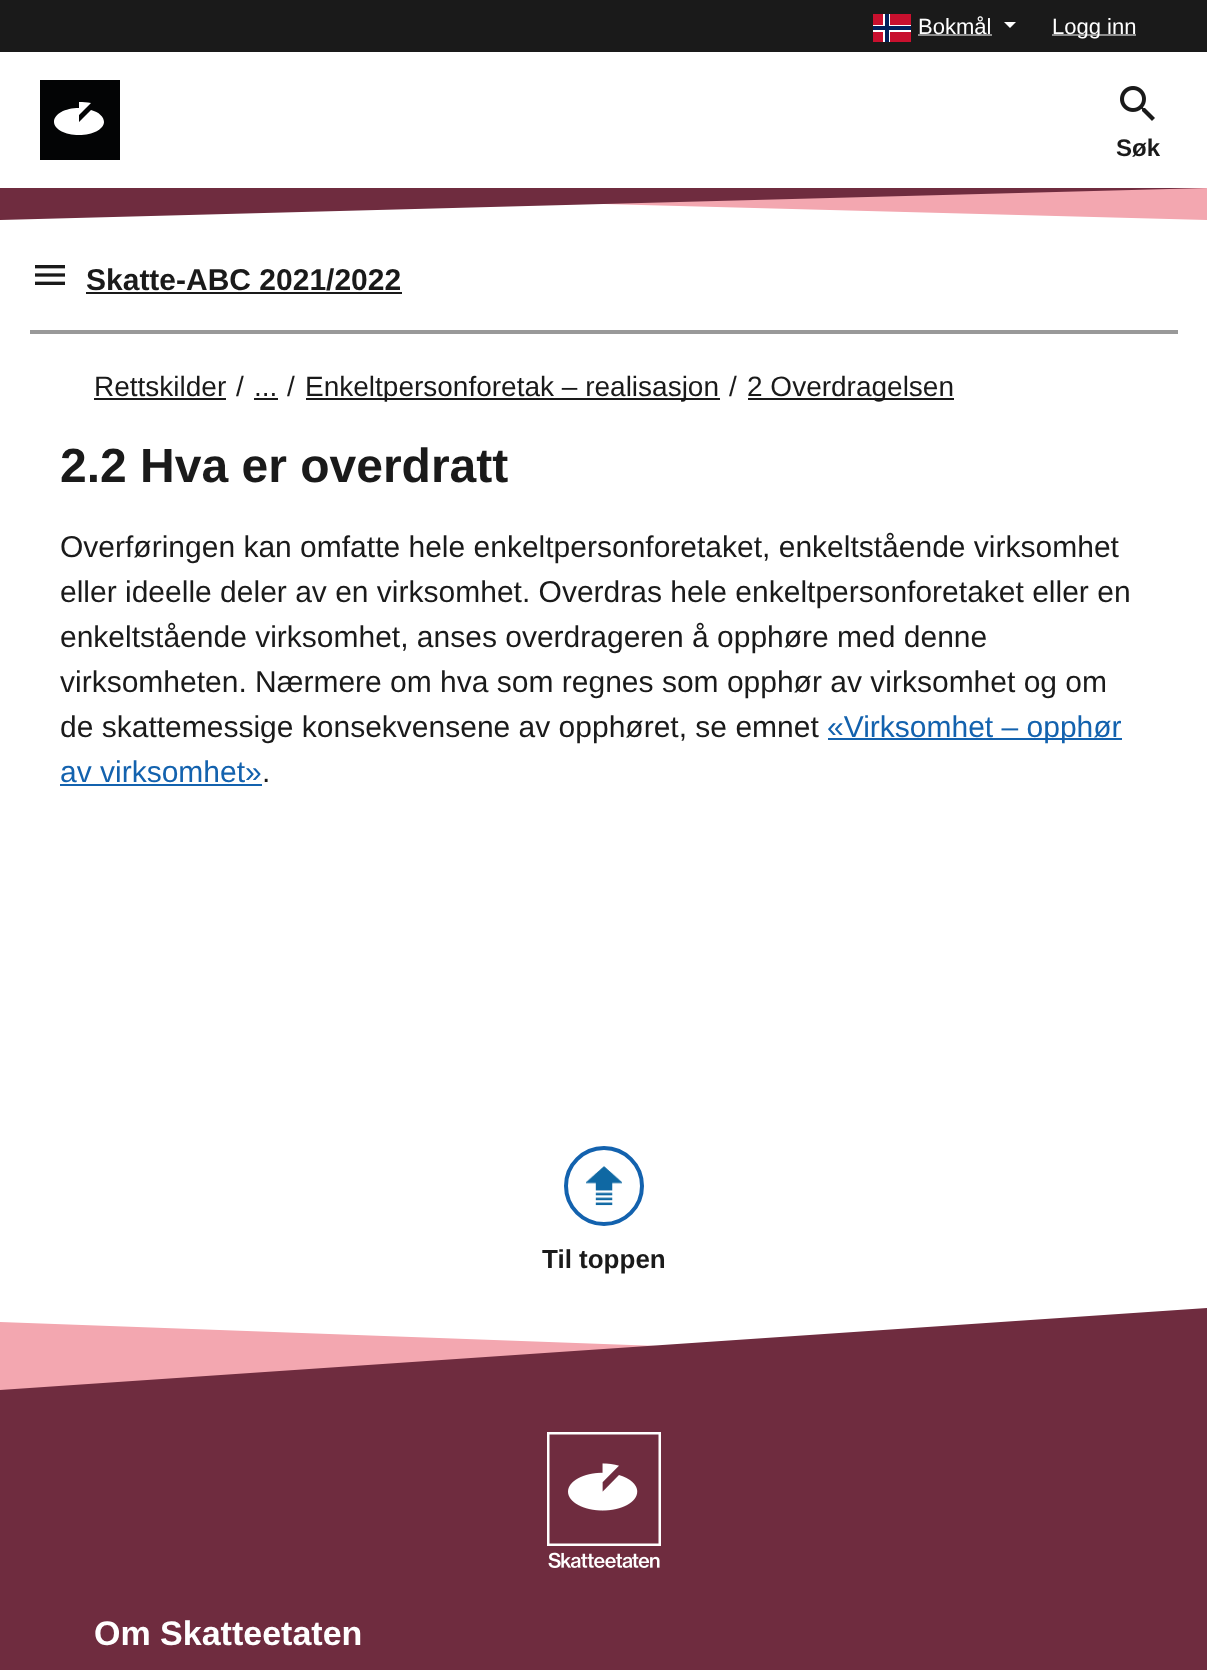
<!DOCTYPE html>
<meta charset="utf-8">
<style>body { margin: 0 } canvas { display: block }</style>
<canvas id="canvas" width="1207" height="1670"></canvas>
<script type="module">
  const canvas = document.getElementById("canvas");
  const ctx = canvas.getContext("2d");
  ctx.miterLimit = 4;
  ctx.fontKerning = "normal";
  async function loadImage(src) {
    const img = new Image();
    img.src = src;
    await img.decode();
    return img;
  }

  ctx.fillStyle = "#ffffff";
  ctx.fillRect(0, 0, 1207, 1670);
  ctx.fillStyle = "#1a1a1a";
  ctx.fillRect(0, 0, 1207, 52);
  ctx.fillStyle = "#c8102e";
  ctx.fillRect(873, 14, 38, 28);
  ctx.fillStyle = "#ffffff";
  ctx.fillRect(883, 14, 7, 28);
  ctx.fillRect(873, 25, 38, 7);
  ctx.fillStyle = "#00205b";
  ctx.fillRect(885, 14, 4, 28);
  ctx.fillStyle = "#8d8d8d";
  ctx.fillRect(918, 34, 74, 2);
  ctx.font = "22px Liberation Sans";
  ctx.fillStyle = "#ffffff";
  ctx.fillText("Bokmål", 918, 34);
  ctx.beginPath();
  ctx.moveTo(1004, 22);
  ctx.lineTo(1016, 22);
  ctx.lineTo(1010, 28);
  ctx.closePath();
  ctx.fill();
  ctx.fillStyle = "#00205b";
  ctx.fillRect(873, 26, 38, 4);
  ctx.fillStyle = "#8d8d8d";
  ctx.fillRect(1052, 34, 84, 2);
  ctx.fillStyle = "#ffffff";
  ctx.fillText("Logg inn", 1052, 34);
  ctx.fillStyle = "#030405";
  ctx.fillRect(40, 80, 80, 80);
  ctx.fillStyle = "#ffffff";
  ctx.beginPath();
  ctx.moveTo(54, 122);
  ctx.bezierCurveTo(54, 129, 65, 135, 79, 135);
  ctx.bezierCurveTo(93, 135, 104, 129, 104, 122);
  ctx.bezierCurveTo(104, 117, 99, 112, 91, 110);
  ctx.lineTo(79, 122);
  ctx.lineTo(79, 115);
  ctx.lineTo(91, 103);
  ctx.bezierCurveTo(87, 102, 83, 102, 79, 102);
  ctx.lineTo(79, 108);
  ctx.bezierCurveTo(65, 108, 54, 114, 54, 122);
  ctx.closePath();
  ctx.fill();
  ctx.drawImage(await loadImage("img1.png"), 1120, 86, 35, 35);
  ctx.font = "bold 24px Liberation Sans";
  ctx.fillStyle = "#1a1a1a";
  ctx.fillText("Søk", 1116, 156);
  ctx.fillStyle = "#f3a7b0";
  ctx.beginPath();
  ctx.moveTo(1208, 188);
  ctx.lineTo(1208, 220);
  ctx.lineTo(0, 188);
  ctx.closePath();
  ctx.fill();
  ctx.fillStyle = "#6f2c3f";
  ctx.beginPath();
  ctx.moveTo(0, 188);
  ctx.lineTo(0, 220);
  ctx.lineTo(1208, 188);
  ctx.closePath();
  ctx.fill();
  ctx.fillStyle = "#999999";
  ctx.fillRect(30, 330, 1148, 4);
  ctx.drawImage(await loadImage("img2.png"), 35, 265, 30, 20);
  ctx.font = "bold 30px Liberation Sans";
  ctx.fillStyle = "#1a1a1a";
  ctx.fillText("Skatte-ABC 2021/2022", 86, 290);
  ctx.fillRect(86, 292, 316, 2);
  ctx.font = "28px Liberation Sans";
  ctx.fillText("Rettskilder", 94, 396);
  ctx.fillRect(94, 398, 132, 2);
  ctx.fillText("/", 236, 396);
  ctx.fillText("...", 254, 396);
  ctx.fillRect(254, 398, 24, 2);
  ctx.fillText("/", 287, 396);
  ctx.fillRect(306, 398, 414, 2);
  ctx.fillText("Enkeltpersonforetak – realisasjon", 305, 396);
  ctx.fillText("/", 729, 396);
  ctx.fillRect(748, 398, 206, 2);
  ctx.fillText("2 Overdragelsen", 747, 396);
  ctx.font = "bold 48px Liberation Sans";
  ctx.fillText("2.2 Hva er overdratt", 60, 482);
  ctx.font = "30px Liberation Sans";
  ctx.fillText("Overføringen kan omfatte hele enkeltpersonforetaket, enkeltstående virksomhet", 60, 557);
  ctx.fillText("eller ideelle deler av en virksomhet. Overdras hele enkeltpersonforetaket eller en", 60, 602);
  ctx.fillText("enkeltstående virksomhet, anses overdrageren å opphøre med denne", 60, 647);
  ctx.fillText("virksomheten. Nærmere om hva som regnes som opphør av virksomhet og om", 60, 692);
  ctx.fillText("de skattemessige konsekvensene av opphøret, se emnet", 60, 737);
  ctx.fillStyle = "#1362ae";
  ctx.fillRect(828, 738, 294, 2);
  ctx.fillText("«Virksomhet – opphør", 827, 737);
  ctx.fillText("av virksomhet»", 60, 782);
  ctx.fillRect(60, 784, 202, 2);
  ctx.fillStyle = "#1a1a1a";
  ctx.fillText(".", 262, 782);
  ctx.drawImage(await loadImage("img3.png"), 586, 1166, 36, 40);
  ctx.beginPath();
  ctx.arc(604, 1186, 38, 0, Math.PI * 2);
  ctx.strokeStyle = "#1362ae";
  ctx.lineWidth = 4;
  ctx.stroke();
  ctx.font = "bold 26px Liberation Sans";
  ctx.fillText("Til toppen", 542, 1268);
  ctx.fillStyle = "#f3a7b0";
  ctx.beginPath();
  ctx.moveTo(0, 1392);
  ctx.lineTo(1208, 1392);
  ctx.lineTo(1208, 1366);
  ctx.lineTo(0, 1322);
  ctx.closePath();
  ctx.fill("evenodd");
  ctx.save();
  ctx.beginPath();
  ctx.rect(0, 1308, 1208, 84);
  ctx.clip();
  ctx.fillStyle = "#6f2c3f";
  ctx.beginPath();
  ctx.moveTo(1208, 1390);
  ctx.lineTo(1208, 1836);
  ctx.lineTo(0, 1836);
  ctx.lineTo(0, 1390);
  ctx.lineTo(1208, 1308);
  ctx.closePath();
  ctx.fill("evenodd");
  ctx.restore();
  ctx.fillStyle = "#6f2c3f";
  ctx.fillRect(0, 1392, 1207, 278);
  ctx.drawImage(await loadImage("img4.png"), 547, 1432, 114, 136);
  ctx.font = "bold 34px Liberation Sans";
  ctx.fillStyle = "#ffffff";
  ctx.fillText("Om Skatteetaten", 94, 1645);
</script>
